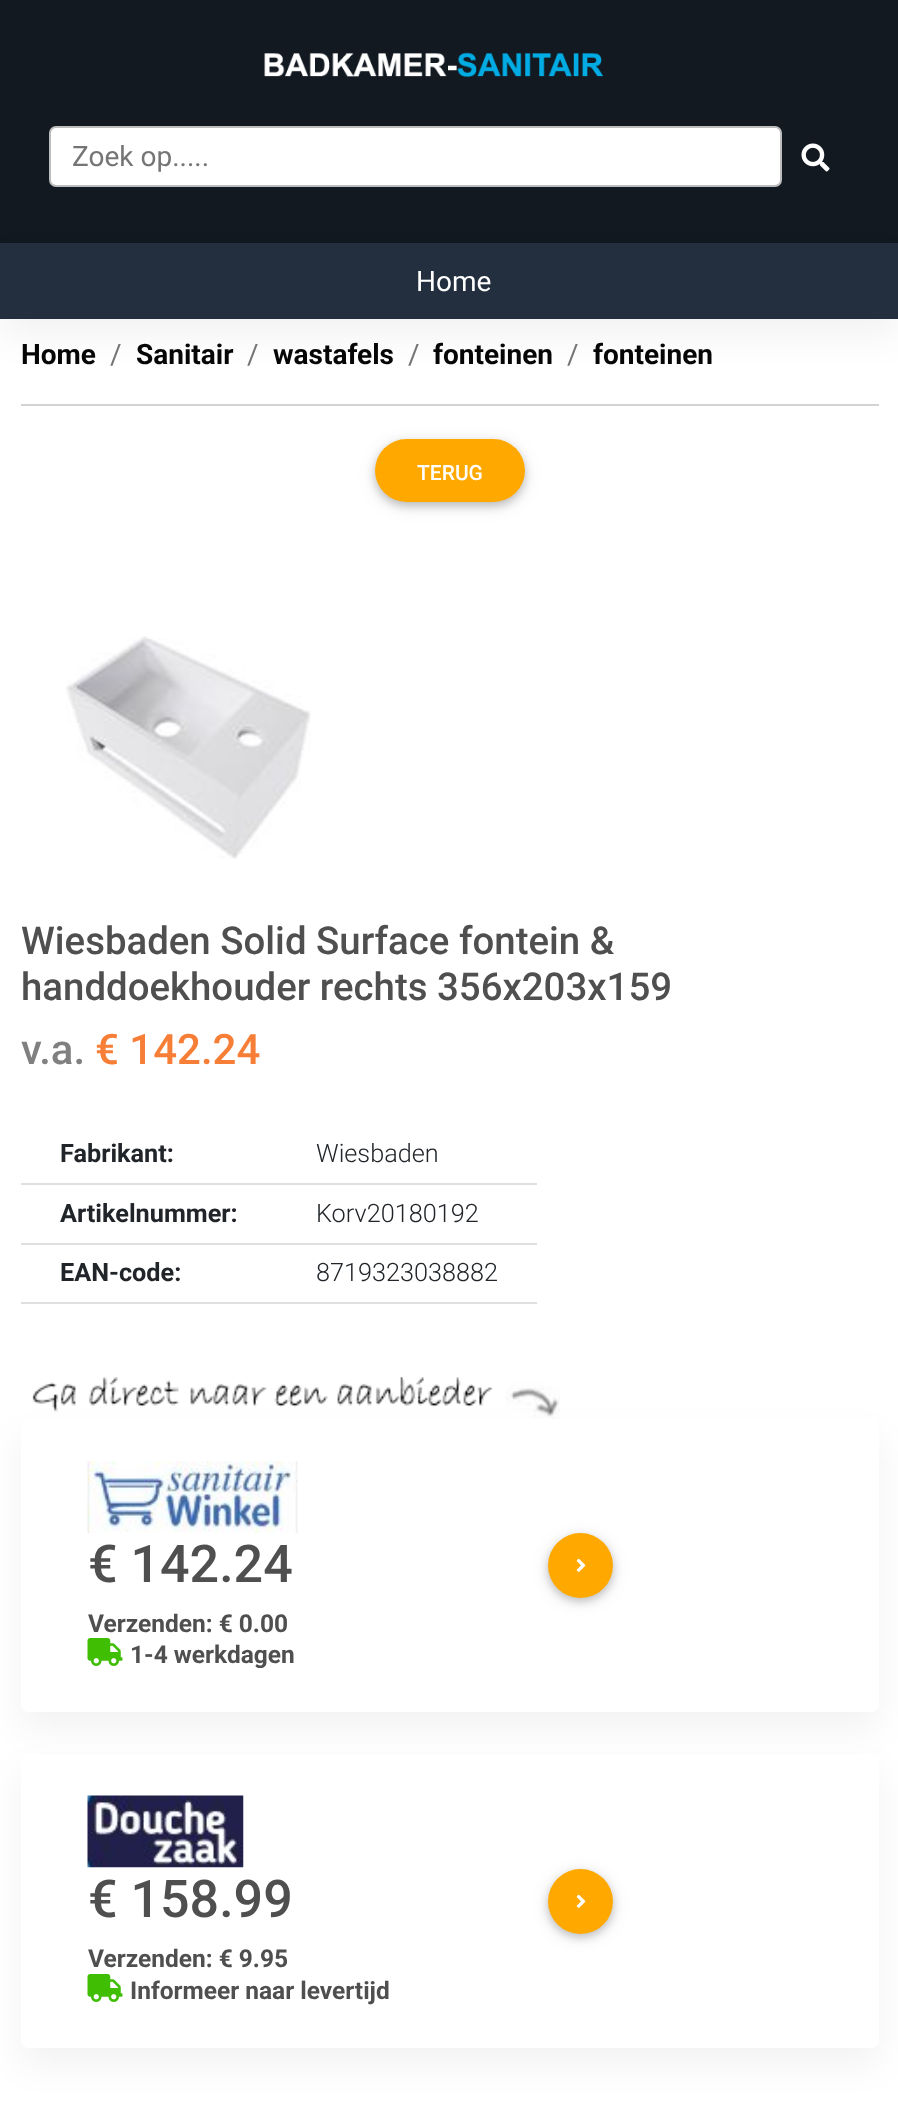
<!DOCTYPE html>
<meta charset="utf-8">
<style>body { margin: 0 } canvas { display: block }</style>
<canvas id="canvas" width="898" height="2110"></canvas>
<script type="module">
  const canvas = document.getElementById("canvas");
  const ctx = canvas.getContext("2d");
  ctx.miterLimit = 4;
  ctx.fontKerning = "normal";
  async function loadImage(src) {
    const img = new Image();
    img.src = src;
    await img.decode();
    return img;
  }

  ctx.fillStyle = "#ffffff";
  ctx.fillRect(0, 0, 898, 2110);
  ctx.fillStyle = "#131921";
  ctx.fillRect(0, 0, 898, 243);
  ctx.drawImage(await loadImage("img1.png"), 264, 52, 340, 25);
  ctx.fillStyle = "#ffffff";
  ctx.beginPath();
  ctx.roundRect(50, 127, 731, 59, 6);
  ctx.fill();
  ctx.strokeStyle = "#bdbdbd";
  ctx.lineWidth = 2;
  ctx.stroke();
  ctx.font = "28px Roboto";
  ctx.fillStyle = "#757575";
  ctx.fillText("Zoek op.....", 72, 166);
  ctx.drawImage(await loadImage("img2.png"), 801, 143, 29, 29);
  ctx.fillStyle = "rgba(0, 0, 0, 0.05)";
  ctx.filter = "blur(17.5px)";
  ctx.beginPath();
  ctx.rect(0, 261, 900, 75);
  ctx.fill();
  ctx.filter = "none";
  ctx.fillStyle = "#232f3e";
  ctx.fillRect(0, 243, 898, 76);
  ctx.fillStyle = "#ffffff";
  ctx.fillText("Home", 416, 291);
  ctx.font = "bold 28px Roboto";
  ctx.fillStyle = "#060606";
  ctx.fillText("Home", 21, 364);
  ctx.font = "28px Roboto";
  ctx.fillStyle = "#757575";
  ctx.fillText("/", 110, 364);
  ctx.font = "bold 28px Roboto";
  ctx.fillStyle = "#060606";
  ctx.fillText("Sanitair", 136, 364);
  ctx.font = "28px Roboto";
  ctx.fillStyle = "#757575";
  ctx.fillText("/", 247, 364);
  ctx.font = "bold 28px Roboto";
  ctx.fillStyle = "#060606";
  ctx.fillText("wastafels", 273, 364);
  ctx.font = "28px Roboto";
  ctx.fillStyle = "#757575";
  ctx.fillText("/", 408, 364);
  ctx.font = "bold 28px Roboto";
  ctx.fillStyle = "#060606";
  ctx.fillText("fonteinen", 433, 364);
  ctx.font = "28px Roboto";
  ctx.fillStyle = "#757575";
  ctx.fillText("/", 567, 364);
  ctx.font = "bold 28px Roboto";
  ctx.fillStyle = "#060606";
  ctx.fillText("fonteinen", 593, 364);
  ctx.fillStyle = "#d3d3d3";
  ctx.fillRect(21, 404, 858, 2);
  ctx.fillStyle = "rgba(0, 0, 0, 0.1)";
  ctx.filter = "blur(9px)";
  ctx.beginPath();
  ctx.roundRect(375, 443, 150, 63, 31.5);
  ctx.fill();
  ctx.filter = "none";
  ctx.fillStyle = "rgba(0, 0, 0, 0.2)";
  ctx.filter = "blur(4.5px)";
  ctx.beginPath();
  ctx.roundRect(375, 443, 150, 63, 31.5);
  ctx.fill();
  ctx.filter = "none";
  ctx.fillStyle = "#ffa900";
  ctx.beginPath();
  ctx.roundRect(375, 439, 150, 63, 31.5);
  ctx.fill();
  ctx.font = "500 21px Roboto";
  ctx.fillStyle = "#ffffff";
  ctx.fillText("TERUG", 417, 480);
  ctx.drawImage(await loadImage("img3.png"), 66, 636, 245, 223);
  ctx.font = "500 38.4px Roboto";
  ctx.fillStyle = "#4f4f4f";
  ctx.fillText("Wiesbaden Solid Surface fontein &", 21, 954);
  ctx.fillText("handdoekhouder rechts 356x203x159", 21, 1000);
  ctx.font = "500 42px Roboto";
  ctx.fillStyle = "#808080";
  ctx.fillText("v.a.", 21, 1064);
  ctx.fillStyle = "#f77e36";
  ctx.fillText("€ 142.24", 95, 1064);
  ctx.font = "bold 25.25px Roboto";
  ctx.fillStyle = "#212529";
  ctx.fillText("Fabrikant:", 60, 1162);
  ctx.fillStyle = "#e0e0e0";
  ctx.fillRect(21, 1183, 516, 2);
  ctx.font = "300 25.25px Roboto";
  ctx.fillStyle = "#212529";
  ctx.fillText("Wiesbaden", 316, 1162);
  ctx.font = "bold 25.25px Roboto";
  ctx.fillText("Artikelnummer:", 60, 1222);
  ctx.fillStyle = "#e0e0e0";
  ctx.fillRect(21, 1243, 516, 2);
  ctx.font = "300 25.25px Roboto";
  ctx.fillStyle = "#212529";
  ctx.fillText("Korv20180192", 316, 1222);
  ctx.font = "bold 25.25px Roboto";
  ctx.fillText("EAN-code:", 60, 1281);
  ctx.fillStyle = "#e0e0e0";
  ctx.fillRect(21, 1302, 516, 2);
  ctx.font = "300 25.25px Roboto";
  ctx.fillStyle = "#212529";
  ctx.fillText("8719323038882", 316, 1281);
  ctx.drawImage(await loadImage("img4.png"), 32, 1377, 528, 42);
  ctx.fillStyle = "rgba(0, 0, 0, 0.05)";
  ctx.filter = "blur(17.5px)";
  ctx.beginPath();
  ctx.roundRect(21, 1437, 858, 292, 7);
  ctx.fill();
  ctx.filter = "none";
  ctx.fillStyle = "#ffffff";
  ctx.beginPath();
  ctx.roundRect(21, 1419, 858, 293, 7);
  ctx.fill();
  ctx.drawImage(await loadImage("img5.png"), 87, 1461, 211, 72);
  ctx.font = "500 52px Roboto";
  ctx.fillStyle = "#4f4f4f";
  ctx.fillText("€ 142.24", 88, 1582);
  ctx.font = "bold 24.5px Roboto";
  ctx.fillText("Verzenden: € 0.00", 88, 1632);
  ctx.drawImage(await loadImage("img6.png"), 87, 1638, 36, 28);
  ctx.fillText("1-4 werkdagen", 130, 1663);
  ctx.fillStyle = "rgba(0, 0, 0, 0.1)";
  ctx.filter = "blur(9px)";
  ctx.beginPath();
  ctx.roundRect(548, 1537, 65, 64, 32);
  ctx.fill();
  ctx.filter = "none";
  ctx.fillStyle = "rgba(0, 0, 0, 0.2)";
  ctx.filter = "blur(4.5px)";
  ctx.beginPath();
  ctx.roundRect(548, 1537, 65, 64, 32);
  ctx.fill();
  ctx.filter = "none";
  ctx.fillStyle = "#ffa900";
  ctx.beginPath();
  ctx.arc(580.5, 1565.5, 32.5, 0, Math.PI * 2);
  ctx.fill();
  ctx.drawImage(await loadImage("img7.png"), 576, 1558, 10, 14);
  ctx.fillStyle = "rgba(0, 0, 0, 0.05)";
  ctx.filter = "blur(17.5px)";
  ctx.beginPath();
  ctx.roundRect(21, 1771, 858, 294, 7);
  ctx.fill();
  ctx.filter = "none";
  ctx.fillStyle = "#ffffff";
  ctx.beginPath();
  ctx.roundRect(21, 1754, 858, 294, 7);
  ctx.fill();
  ctx.drawImage(await loadImage("img8.png"), 87, 1795, 157, 73);
  ctx.font = "500 52px Roboto";
  ctx.fillStyle = "#4f4f4f";
  ctx.fillText("€ 158.99", 88, 1917);
  ctx.font = "bold 24.5px Roboto";
  ctx.fillText("Verzenden: € 9.95", 88, 1967);
  ctx.drawImage(await loadImage("img6.png"), 87, 1974, 36, 28);
  ctx.fillText("Informeer naar levertijd", 130, 1999);
  ctx.fillStyle = "rgba(0, 0, 0, 0.1)";
  ctx.filter = "blur(9px)";
  ctx.beginPath();
  ctx.roundRect(548, 1873, 65, 64, 32);
  ctx.fill();
  ctx.filter = "none";
  ctx.fillStyle = "rgba(0, 0, 0, 0.2)";
  ctx.filter = "blur(4.5px)";
  ctx.beginPath();
  ctx.roundRect(548, 1873, 65, 64, 32);
  ctx.fill();
  ctx.filter = "none";
  ctx.fillStyle = "#ffa900";
  ctx.beginPath();
  ctx.arc(580.5, 1901.5, 32.5, 0, Math.PI * 2);
  ctx.fill();
  ctx.drawImage(await loadImage("img7.png"), 576, 1894, 10, 14);
</script>
